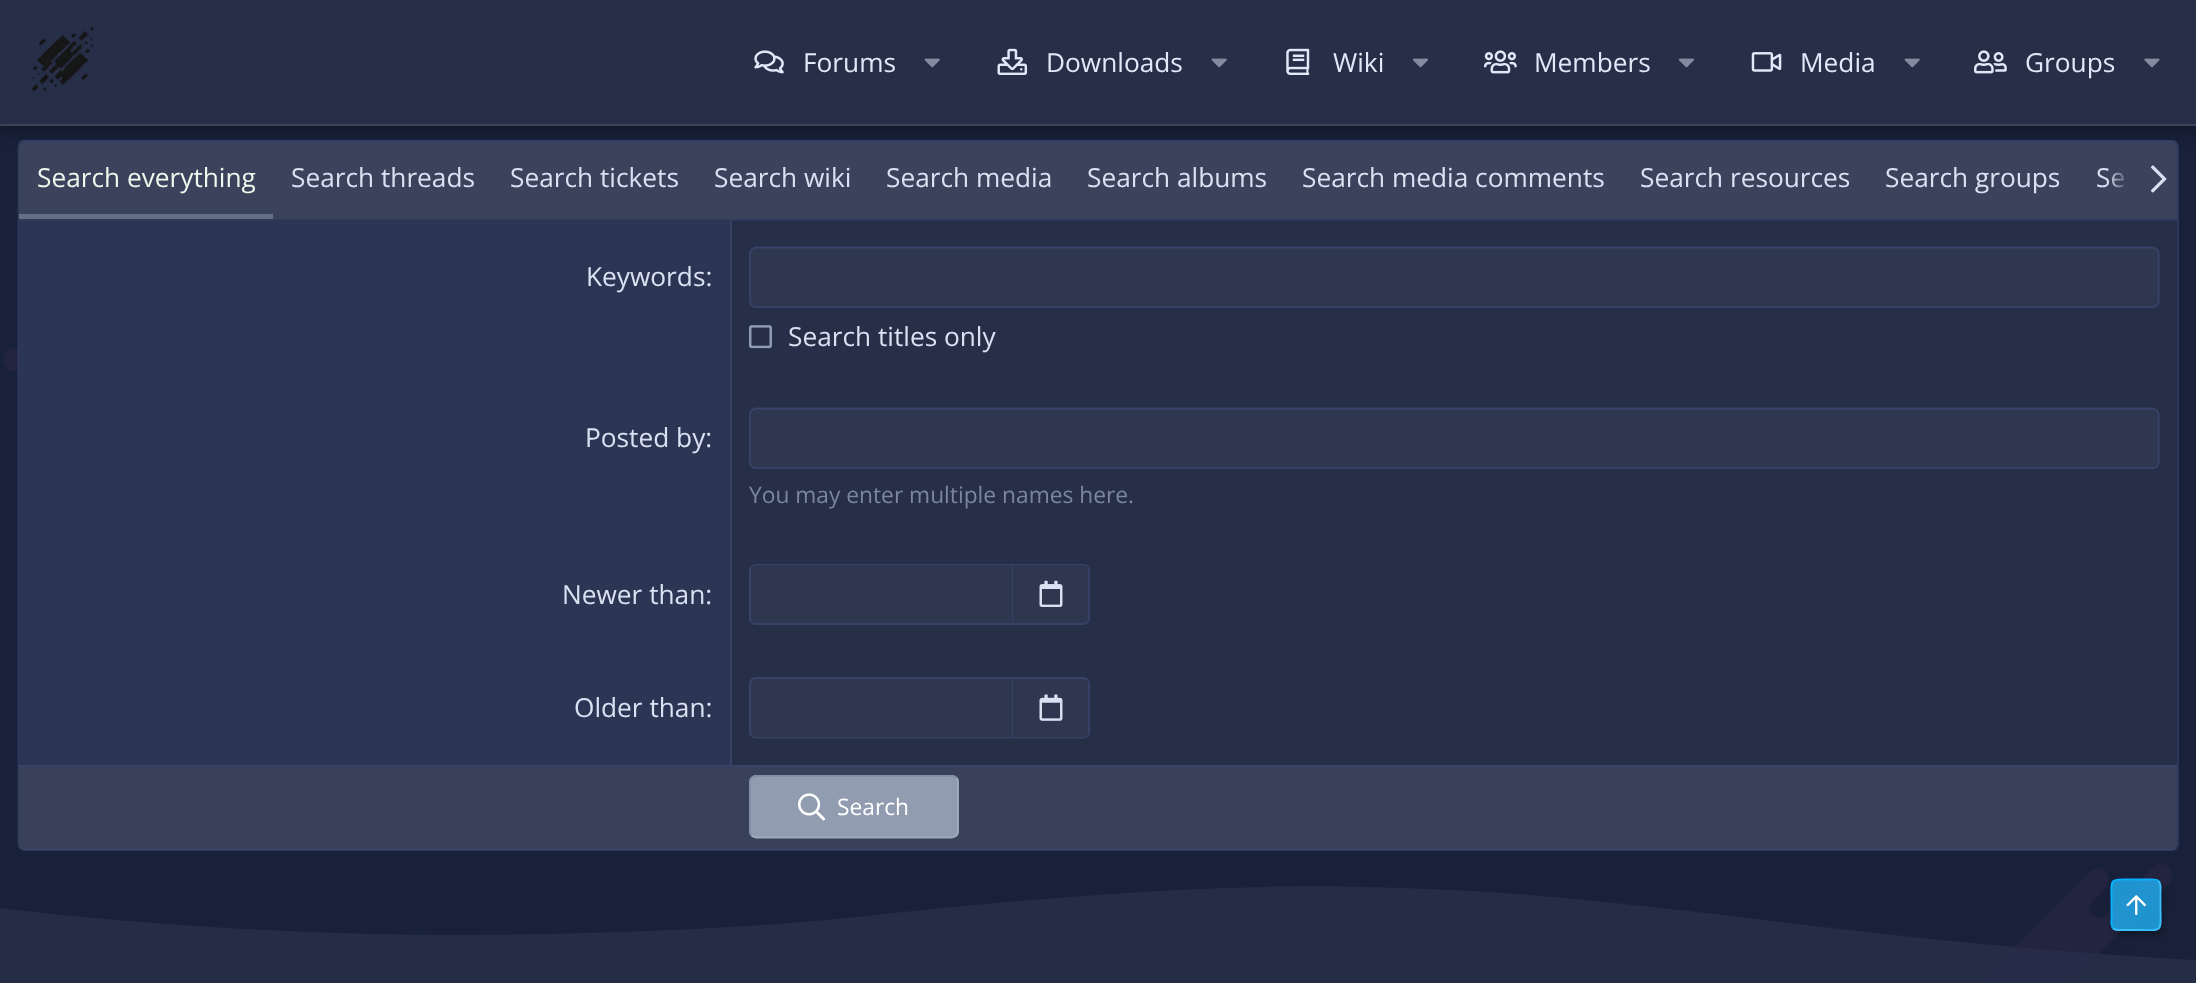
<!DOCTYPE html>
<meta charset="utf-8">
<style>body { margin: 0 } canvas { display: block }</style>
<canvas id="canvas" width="2196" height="983"></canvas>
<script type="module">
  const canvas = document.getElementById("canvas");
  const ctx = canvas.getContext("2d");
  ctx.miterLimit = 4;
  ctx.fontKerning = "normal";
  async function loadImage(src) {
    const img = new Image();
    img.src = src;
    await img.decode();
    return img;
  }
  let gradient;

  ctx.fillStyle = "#182139";
  ctx.fillRect(0, 0, 2196, 983);
  ctx.fillStyle = "#272e48";
  ctx.beginPath();
  ctx.roundRect(18, 140, 2161, 711, 7);
  ctx.fill();
  ctx.beginPath();
  ctx.moveTo(20, 142.5);
  ctx.bezierCurveTo(21.5, 141.5, 23, 141, 24.5, 141);
  ctx.lineTo(2172, 141);
  ctx.bezierCurveTo(2173.5, 141, 2175, 141.5, 2176, 142.5);
  ctx.strokeStyle = "#374166";
  ctx.lineWidth = 1.8;
  ctx.stroke();
  ctx.beginPath();
  ctx.moveTo(2176, 142.5);
  ctx.bezierCurveTo(2177, 144, 2178, 145.5, 2178, 147);
  ctx.lineTo(2178, 843.5);
  ctx.bezierCurveTo(2178, 845, 2177, 846.5, 2176, 848);
  ctx.strokeStyle = "#303959";
  ctx.stroke();
  ctx.beginPath();
  ctx.moveTo(2176, 848);
  ctx.bezierCurveTo(2175, 849, 2173.5, 849.5, 2172, 849.5);
  ctx.lineTo(24.5, 849.5);
  ctx.bezierCurveTo(23, 849.5, 21.5, 849, 20, 848);
  ctx.strokeStyle = "#394369";
  ctx.stroke();
  ctx.drawImage(await loadImage("img16.png"), 2, 348, 16, 24);
  ctx.beginPath();
  ctx.moveTo(20, 848);
  ctx.bezierCurveTo(19, 846.5, 18.5, 845, 18.5, 843.5);
  ctx.lineTo(18.5, 147);
  ctx.bezierCurveTo(18.5, 145.5, 19, 144, 20, 142.5);
  ctx.strokeStyle = "#303959";
  ctx.stroke();
  ctx.fillStyle = "#3b425c";
  ctx.beginPath();
  ctx.roundRect(19, 142, 2158, 79, [5, 5, 0, 0]);
  ctx.fill();
  ctx.font = "26.25px Open Sans";
  ctx.fillStyle = "#dae1f3";
  ctx.fillText("Se", 2096, 187);
  gradient = ctx.createLinearGradient(2107, 180, 2177, 180);
  gradient.addColorStop(0, "rgba(59, 66, 92, 0)");
  gradient.addColorStop(0.33, "#3b425c");
  ctx.fillStyle = gradient;
  ctx.beginPath();
  ctx.roundRect(2107, 142, 70, 77, [0, 5, 0, 0]);
  ctx.fill();
  ctx.fillStyle = "rgba(0, 0, 0, 0.3)";
  ctx.filter = "blur(7px)";
  ctx.beginPath();
  ctx.rect(-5, -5, 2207, 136);
  ctx.fill();
  ctx.filter = "none";
  ctx.fillStyle = "#272e48";
  ctx.fillRect(0, 0, 2196, 124);
  ctx.fillStyle = "#3d435a";
  ctx.fillRect(0, 124, 2196, 2);
  ctx.drawImage(await loadImage("img1.png"), 31, 26, 63, 66);
  ctx.drawImage(await loadImage("img2.png"), 754, 50, 30, 24);
  ctx.fillStyle = "#e1e8f8";
  ctx.fillText("Forums", 803, 72);
  ctx.drawImage(await loadImage("img3.png"), 924, 58, 16, 10);
  ctx.drawImage(await loadImage("img4.png"), 997, 48, 31, 27);
  ctx.fillText("Downloads", 1046, 72);
  ctx.drawImage(await loadImage("img3.png"), 1211, 58, 16, 10);
  ctx.drawImage(await loadImage("img5.png"), 1286, 48, 24, 27);
  ctx.fillText("Wiki", 1333, 72);
  ctx.drawImage(await loadImage("img6.png"), 1412, 58, 16, 10);
  ctx.drawImage(await loadImage("img7.png"), 1484, 50, 33, 24);
  ctx.fillText("Members", 1534, 72);
  ctx.drawImage(await loadImage("img6.png"), 1678, 58, 16, 10);
  ctx.drawImage(await loadImage("img8.png"), 1751, 52, 31, 20);
  ctx.fillText("Media", 1800, 72);
  ctx.drawImage(await loadImage("img3.png"), 1904, 58, 16, 10);
  ctx.drawImage(await loadImage("img9.png"), 1974, 50, 33, 24);
  ctx.fillText("Groups", 2025, 72);
  ctx.drawImage(await loadImage("img10.png"), 2144, 58, 16, 10);
  ctx.fillStyle = "#303959";
  ctx.fillRect(19, 219, 2158, 2);
  ctx.fillStyle = "#667084";
  ctx.fillRect(19, 214, 254, 5);
  ctx.fillStyle = "#eef8ed";
  ctx.fillText("Search everything", 37, 187);
  ctx.fillStyle = "#dae1f3";
  ctx.fillText("Search threads", 291, 187);
  ctx.fillText("Search tickets", 510, 187);
  ctx.fillText("Search wiki", 714, 187);
  ctx.fillText("Search media", 886, 187);
  ctx.fillText("Search albums", 1087, 187);
  ctx.fillText("Search media comments", 1302, 187);
  ctx.fillText("Search resources", 1640, 187);
  ctx.fillText("Search groups", 1885, 187);
  ctx.drawImage(await loadImage("img11.png"), 2150, 165, 17, 28);
  ctx.fillStyle = "#2d3554";
  ctx.fillRect(19, 221, 711, 544);
  ctx.fillStyle = "#374166";
  ctx.fillRect(730, 221, 2, 544);
  ctx.fillStyle = "#dae1f3";
  ctx.fillText("Keywords:", 586, 286);
  ctx.fillStyle = "#2f3650";
  ctx.beginPath();
  ctx.roundRect(749, 247, 1411, 61, 7);
  ctx.fill();
  ctx.beginPath();
  ctx.moveTo(2157, 249.5);
  ctx.bezierCurveTo(2158, 250.5, 2158.5, 252, 2158.5, 254);
  ctx.lineTo(2158.5, 301);
  ctx.bezierCurveTo(2158.5, 302.5, 2158, 304, 2157, 305.5);
  ctx.bezierCurveTo(2155.5, 306.5, 2154, 307, 2152.5, 307);
  ctx.lineTo(756, 307);
  ctx.bezierCurveTo(754.5, 307, 753, 306.5, 751.5, 305.5);
  ctx.strokeStyle = "#374166";
  ctx.stroke();
  ctx.beginPath();
  ctx.moveTo(751.5, 305.5);
  ctx.bezierCurveTo(750.5, 304, 750, 302.5, 750, 301);
  ctx.lineTo(750, 254);
  ctx.bezierCurveTo(750, 252, 750.5, 250.5, 751.5, 249.5);
  ctx.bezierCurveTo(753, 248.5, 754.5, 247.5, 756, 247.5);
  ctx.lineTo(2152.5, 247.5);
  ctx.bezierCurveTo(2154, 247.5, 2155.5, 248.5, 2157, 249.5);
  ctx.strokeStyle = "#394369";
  ctx.stroke();
  ctx.drawImage(await loadImage("img12.png"), 749, 325, 23, 24);
  ctx.fillStyle = "#dae1f3";
  ctx.fillText("Search titles only", 788, 346);
  ctx.fillText("Posted by:", 585, 447);
  ctx.fillStyle = "#2f3650";
  ctx.beginPath();
  ctx.roundRect(749, 408, 1411, 61, 7);
  ctx.fill();
  ctx.beginPath();
  ctx.moveTo(2157, 410.5);
  ctx.bezierCurveTo(2158, 411.5, 2158.5, 413, 2158.5, 415);
  ctx.lineTo(2158.5, 462);
  ctx.bezierCurveTo(2158.5, 463.5, 2158, 465, 2157, 466.5);
  ctx.bezierCurveTo(2155.5, 467.5, 2154, 468, 2152.5, 468);
  ctx.lineTo(756, 468);
  ctx.bezierCurveTo(754.5, 468, 753, 467.5, 751.5, 466.5);
  ctx.strokeStyle = "#374166";
  ctx.stroke();
  ctx.beginPath();
  ctx.moveTo(751.5, 466.5);
  ctx.bezierCurveTo(750.5, 465, 750, 463.5, 750, 462);
  ctx.lineTo(750, 415);
  ctx.bezierCurveTo(750, 413, 750.5, 411.5, 751.5, 410.5);
  ctx.bezierCurveTo(753, 409.5, 754.5, 408.5, 756, 408.5);
  ctx.lineTo(2152.5, 408.5);
  ctx.bezierCurveTo(2154, 408.5, 2155.5, 409.5, 2157, 410.5);
  ctx.strokeStyle = "#394369";
  ctx.stroke();
  ctx.font = "22.75px Open Sans";
  ctx.fillStyle = "#7c869d";
  ctx.fillText("You may enter multiple names here.", 749, 503);
  ctx.font = "26.25px Open Sans";
  ctx.fillStyle = "#dae1f3";
  ctx.fillText("Newer than:", 562, 604);
  ctx.fillStyle = "#2f3650";
  ctx.beginPath();
  ctx.roundRect(749, 564, 263, 61, [7, 0, 0, 7]);
  ctx.fill();
  ctx.fillStyle = "#394369";
  ctx.beginPath();
  ctx.moveTo(756, 564);
  ctx.lineTo(1012, 564);
  ctx.lineTo(1012, 565);
  ctx.lineTo(756, 565);
  ctx.bezierCurveTo(754, 565, 753, 566, 752, 567);
  ctx.lineTo(751, 566);
  ctx.bezierCurveTo(752, 565, 754, 564, 756, 564);
  ctx.closePath();
  ctx.fill();
  ctx.fillStyle = "#374166";
  ctx.beginPath();
  ctx.moveTo(1012, 625);
  ctx.lineTo(754, 625);
  ctx.lineTo(751, 623);
  ctx.lineTo(752, 621);
  ctx.bezierCurveTo(753, 622, 754, 623, 756, 623);
  ctx.lineTo(1012, 623);
  ctx.closePath();
  ctx.fill();
  ctx.fillStyle = "#394369";
  ctx.beginPath();
  ctx.moveTo(752, 621);
  ctx.lineTo(751, 623);
  ctx.bezierCurveTo(750, 622, 749, 620, 749, 618);
  ctx.lineTo(749, 570);
  ctx.bezierCurveTo(749, 568, 750, 567, 751, 566);
  ctx.lineTo(752, 567);
  ctx.bezierCurveTo(751, 568, 751, 569, 751, 570);
  ctx.lineTo(751, 618);
  ctx.bezierCurveTo(751, 619, 751, 621, 752, 621);
  ctx.closePath();
  ctx.fill();
  ctx.fillStyle = "#2f3650";
  ctx.beginPath();
  ctx.roundRect(1012, 564, 78, 61, [0, 7, 7, 0]);
  ctx.fill();
  ctx.fillStyle = "#394369";
  ctx.beginPath();
  ctx.moveTo(1012, 564);
  ctx.lineTo(1013, 565);
  ctx.lineTo(1083, 565);
  ctx.bezierCurveTo(1085, 565, 1086, 566, 1087, 567);
  ctx.lineTo(1088, 566);
  ctx.bezierCurveTo(1087, 565, 1085, 564, 1083, 564);
  ctx.closePath();
  ctx.fill();
  ctx.fillStyle = "#374166";
  ctx.beginPath();
  ctx.moveTo(1088, 566);
  ctx.bezierCurveTo(1089, 567, 1090, 568, 1090, 570);
  ctx.lineTo(1090, 618);
  ctx.bezierCurveTo(1090, 620, 1089, 622, 1088, 623);
  ctx.lineTo(1087, 621);
  ctx.bezierCurveTo(1088, 621, 1088, 619, 1088, 618);
  ctx.lineTo(1088, 570);
  ctx.bezierCurveTo(1088, 569, 1088, 568, 1087, 567);
  ctx.closePath();
  ctx.fill();
  ctx.beginPath();
  ctx.moveTo(1012, 625);
  ctx.lineTo(1013, 623);
  ctx.lineTo(1084, 623);
  ctx.lineTo(1087, 621);
  ctx.lineTo(1088, 623);
  ctx.lineTo(1085, 625);
  ctx.closePath();
  ctx.fill();
  ctx.beginPath();
  ctx.moveTo(1013, 565);
  ctx.lineTo(1012, 564);
  ctx.lineTo(1012, 624);
  ctx.lineTo(1013, 623);
  ctx.closePath();
  ctx.fill();
  ctx.drawImage(await loadImage("img13.png"), 1039, 580, 24, 27);
  ctx.fillStyle = "#dae1f3";
  ctx.fillText("Older than:", 574, 717);
  ctx.fillStyle = "#2f3650";
  ctx.beginPath();
  ctx.roundRect(749, 677, 263, 62, [7, 0, 0, 7]);
  ctx.fill();
  ctx.fillStyle = "#394369";
  ctx.beginPath();
  ctx.moveTo(756, 679);
  ctx.bezierCurveTo(754, 679, 753, 680, 752, 681);
  ctx.lineTo(751, 679);
  ctx.lineTo(754, 677);
  ctx.lineTo(1012, 677);
  ctx.lineTo(1012, 679);
  ctx.closePath();
  ctx.fill();
  ctx.fillStyle = "#374166";
  ctx.beginPath();
  ctx.moveTo(1012, 738);
  ctx.lineTo(755, 738);
  ctx.lineTo(751, 736);
  ctx.lineTo(752, 735);
  ctx.bezierCurveTo(753, 736, 754, 737, 756, 737);
  ctx.lineTo(1012, 737);
  ctx.closePath();
  ctx.fill();
  ctx.fillStyle = "#394369";
  ctx.beginPath();
  ctx.moveTo(749, 684);
  ctx.lineTo(749, 732);
  ctx.bezierCurveTo(749, 734, 750, 735, 751, 736);
  ctx.lineTo(752, 735);
  ctx.bezierCurveTo(751, 734, 751, 733, 751, 732);
  ctx.lineTo(751, 684);
  ctx.bezierCurveTo(751, 683, 751, 681, 752, 681);
  ctx.lineTo(751, 679);
  ctx.bezierCurveTo(750, 680, 749, 682, 749, 684);
  ctx.closePath();
  ctx.fill();
  ctx.fillStyle = "#2f3650";
  ctx.beginPath();
  ctx.roundRect(1012, 677, 78, 62, [0, 7, 7, 0]);
  ctx.fill();
  ctx.fillStyle = "#394369";
  ctx.beginPath();
  ctx.moveTo(1012, 678);
  ctx.lineTo(1012, 677);
  ctx.lineTo(1085, 677);
  ctx.lineTo(1088, 679);
  ctx.lineTo(1087, 681);
  ctx.lineTo(1084, 679);
  ctx.lineTo(1013, 679);
  ctx.closePath();
  ctx.fill();
  ctx.fillStyle = "#374166";
  ctx.beginPath();
  ctx.moveTo(1088, 679);
  ctx.bezierCurveTo(1089, 680, 1090, 682, 1090, 684);
  ctx.lineTo(1090, 732);
  ctx.bezierCurveTo(1090, 734, 1089, 735, 1088, 736);
  ctx.lineTo(1087, 735);
  ctx.bezierCurveTo(1088, 734, 1088, 733, 1088, 732);
  ctx.lineTo(1088, 684);
  ctx.bezierCurveTo(1088, 683, 1088, 681, 1087, 681);
  ctx.closePath();
  ctx.fill();
  ctx.beginPath();
  ctx.moveTo(1088, 736);
  ctx.bezierCurveTo(1087, 737, 1085, 738, 1083, 738);
  ctx.lineTo(1012, 738);
  ctx.lineTo(1013, 737);
  ctx.lineTo(1083, 737);
  ctx.bezierCurveTo(1085, 737, 1086, 736, 1087, 735);
  ctx.closePath();
  ctx.fill();
  ctx.beginPath();
  ctx.moveTo(1013, 679);
  ctx.lineTo(1012, 678);
  ctx.lineTo(1012, 738);
  ctx.lineTo(1013, 737);
  ctx.closePath();
  ctx.fill();
  ctx.drawImage(await loadImage("img14.png"), 1039, 694, 24, 27);
  ctx.fillStyle = "rgba(59, 66, 92, 0.9)";
  ctx.beginPath();
  ctx.roundRect(19, 765, 2158, 84, [0, 0, 5, 5]);
  ctx.fill();
  ctx.fillStyle = "#394369";
  ctx.fillRect(19, 765, 2158, 2);
  ctx.fillStyle = "#919cb0";
  ctx.beginPath();
  ctx.roundRect(749, 775, 210, 63, 7);
  ctx.fill();
  ctx.beginPath();
  ctx.moveTo(956.5, 778);
  ctx.bezierCurveTo(957.5, 779, 958, 780.5, 958, 782);
  ctx.lineTo(958, 831);
  ctx.bezierCurveTo(958, 833, 957.5, 834.5, 956.5, 835.5);
  ctx.bezierCurveTo(955, 836.5, 953.5, 837.5, 952, 837.5);
  ctx.lineTo(756, 837.5);
  ctx.bezierCurveTo(754.5, 837.5, 753, 836.5, 751.5, 835.5);
  ctx.strokeStyle = "#a0a9bb";
  ctx.stroke();
  ctx.beginPath();
  ctx.moveTo(751.5, 835.5);
  ctx.bezierCurveTo(750.5, 834.5, 750, 833, 750, 831);
  ctx.lineTo(750, 782);
  ctx.bezierCurveTo(750, 780.5, 750.5, 779, 751.5, 778);
  ctx.bezierCurveTo(753, 777, 754.5, 776, 756, 776);
  ctx.lineTo(952, 776);
  ctx.bezierCurveTo(953.5, 776, 955, 777, 956.5, 778);
  ctx.strokeStyle = "#828fa5";
  ctx.stroke();
  ctx.drawImage(await loadImage("img15.png"), 798, 793, 28, 28);
  ctx.font = "22.75px Open Sans";
  ctx.fillStyle = "#ffffff";
  ctx.fillText("Search", 837, 815);
  ctx.drawImage(await loadImage("img17.png"), 1978, 864, 195, 119);
  ctx.fillStyle = "rgba(39, 46, 72, 0.9)";
  ctx.beginPath();
  ctx.moveTo(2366, 967);
  ctx.bezierCurveTo(2189, 962, 2017, 951, 1790, 923);
  ctx.bezierCurveTo(1701, 912, 1560, 896, 1489, 892);
  ctx.bezierCurveTo(1418, 888, 1332, 885, 1263, 887);
  ctx.bezierCurveTo(1232, 888, 1195, 888, 1113, 894);
  ctx.bezierCurveTo(1032, 899, 939, 908, 875, 915);
  ctx.bezierCurveTo(752, 929, 591, 934, 474, 935);
  ctx.bezierCurveTo(216, 936, 0, 908, 0, 908);
  ctx.lineTo(0, 973);
  ctx.lineTo(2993, 973);
  ctx.lineTo(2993, 943);
  ctx.bezierCurveTo(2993, 943, 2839, 960, 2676, 965);
  ctx.bezierCurveTo(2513, 970, 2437, 969, 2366, 967);
  ctx.closePath();
  ctx.fill();
  ctx.fillRect(0, 973, 2196, 10);
  ctx.save();
  ctx.beginPath();
  ctx.moveTo(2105, 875);
  ctx.lineTo(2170, 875);
  ctx.lineTo(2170, 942);
  ctx.lineTo(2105, 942);
  ctx.closePath();
  ctx.moveTo(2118, 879);
  ctx.lineTo(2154, 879);
  ctx.bezierCurveTo(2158, 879, 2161, 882, 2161, 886);
  ctx.lineTo(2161, 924);
  ctx.bezierCurveTo(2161, 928, 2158, 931, 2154, 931);
  ctx.lineTo(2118, 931);
  ctx.bezierCurveTo(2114, 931, 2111, 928, 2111, 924);
  ctx.lineTo(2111, 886);
  ctx.bezierCurveTo(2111, 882, 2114, 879, 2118, 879);
  ctx.closePath();
  ctx.clip("evenodd");
  ctx.fillStyle = "rgba(0, 0, 0, 0.25)";
  ctx.filter = "blur(2px)";
  ctx.beginPath();
  ctx.roundRect(2112, 882, 51, 53, 7);
  ctx.fill();
  ctx.filter = "none";
  ctx.restore();
  ctx.fillStyle = "rgba(34, 185, 255, 0.75)";
  ctx.beginPath();
  ctx.roundRect(2111, 879, 50, 52, 7);
  ctx.fill();
  ctx.beginPath();
  ctx.moveTo(2158.5, 881);
  ctx.bezierCurveTo(2161.5, 884, 2160.5, 888.5, 2160.5, 892);
  ctx.lineTo(2160.5, 905);
  ctx.bezierCurveTo(2160.5, 933.5, 2164.5, 930, 2136, 930);
  ctx.lineTo(2123.5, 930);
  ctx.bezierCurveTo(2120.5, 930, 2116, 931, 2113, 928.5);
  ctx.strokeStyle = "#3cc1ff";
  ctx.stroke();
  ctx.beginPath();
  ctx.moveTo(2113, 928.5);
  ctx.bezierCurveTo(2110.5, 925.5, 2111.5, 921, 2111.5, 917.5);
  ctx.lineTo(2111.5, 905);
  ctx.bezierCurveTo(2111.5, 876, 2107.5, 879.5, 2136, 879.5);
  ctx.lineTo(2148, 879.5);
  ctx.bezierCurveTo(2151.5, 879.5, 2156, 878.5, 2158.5, 881);
  ctx.strokeStyle = "#08b1ff";
  ctx.stroke();
  ctx.drawImage(await loadImage("img18.png"), 2126, 895, 21, 20);
</script>
